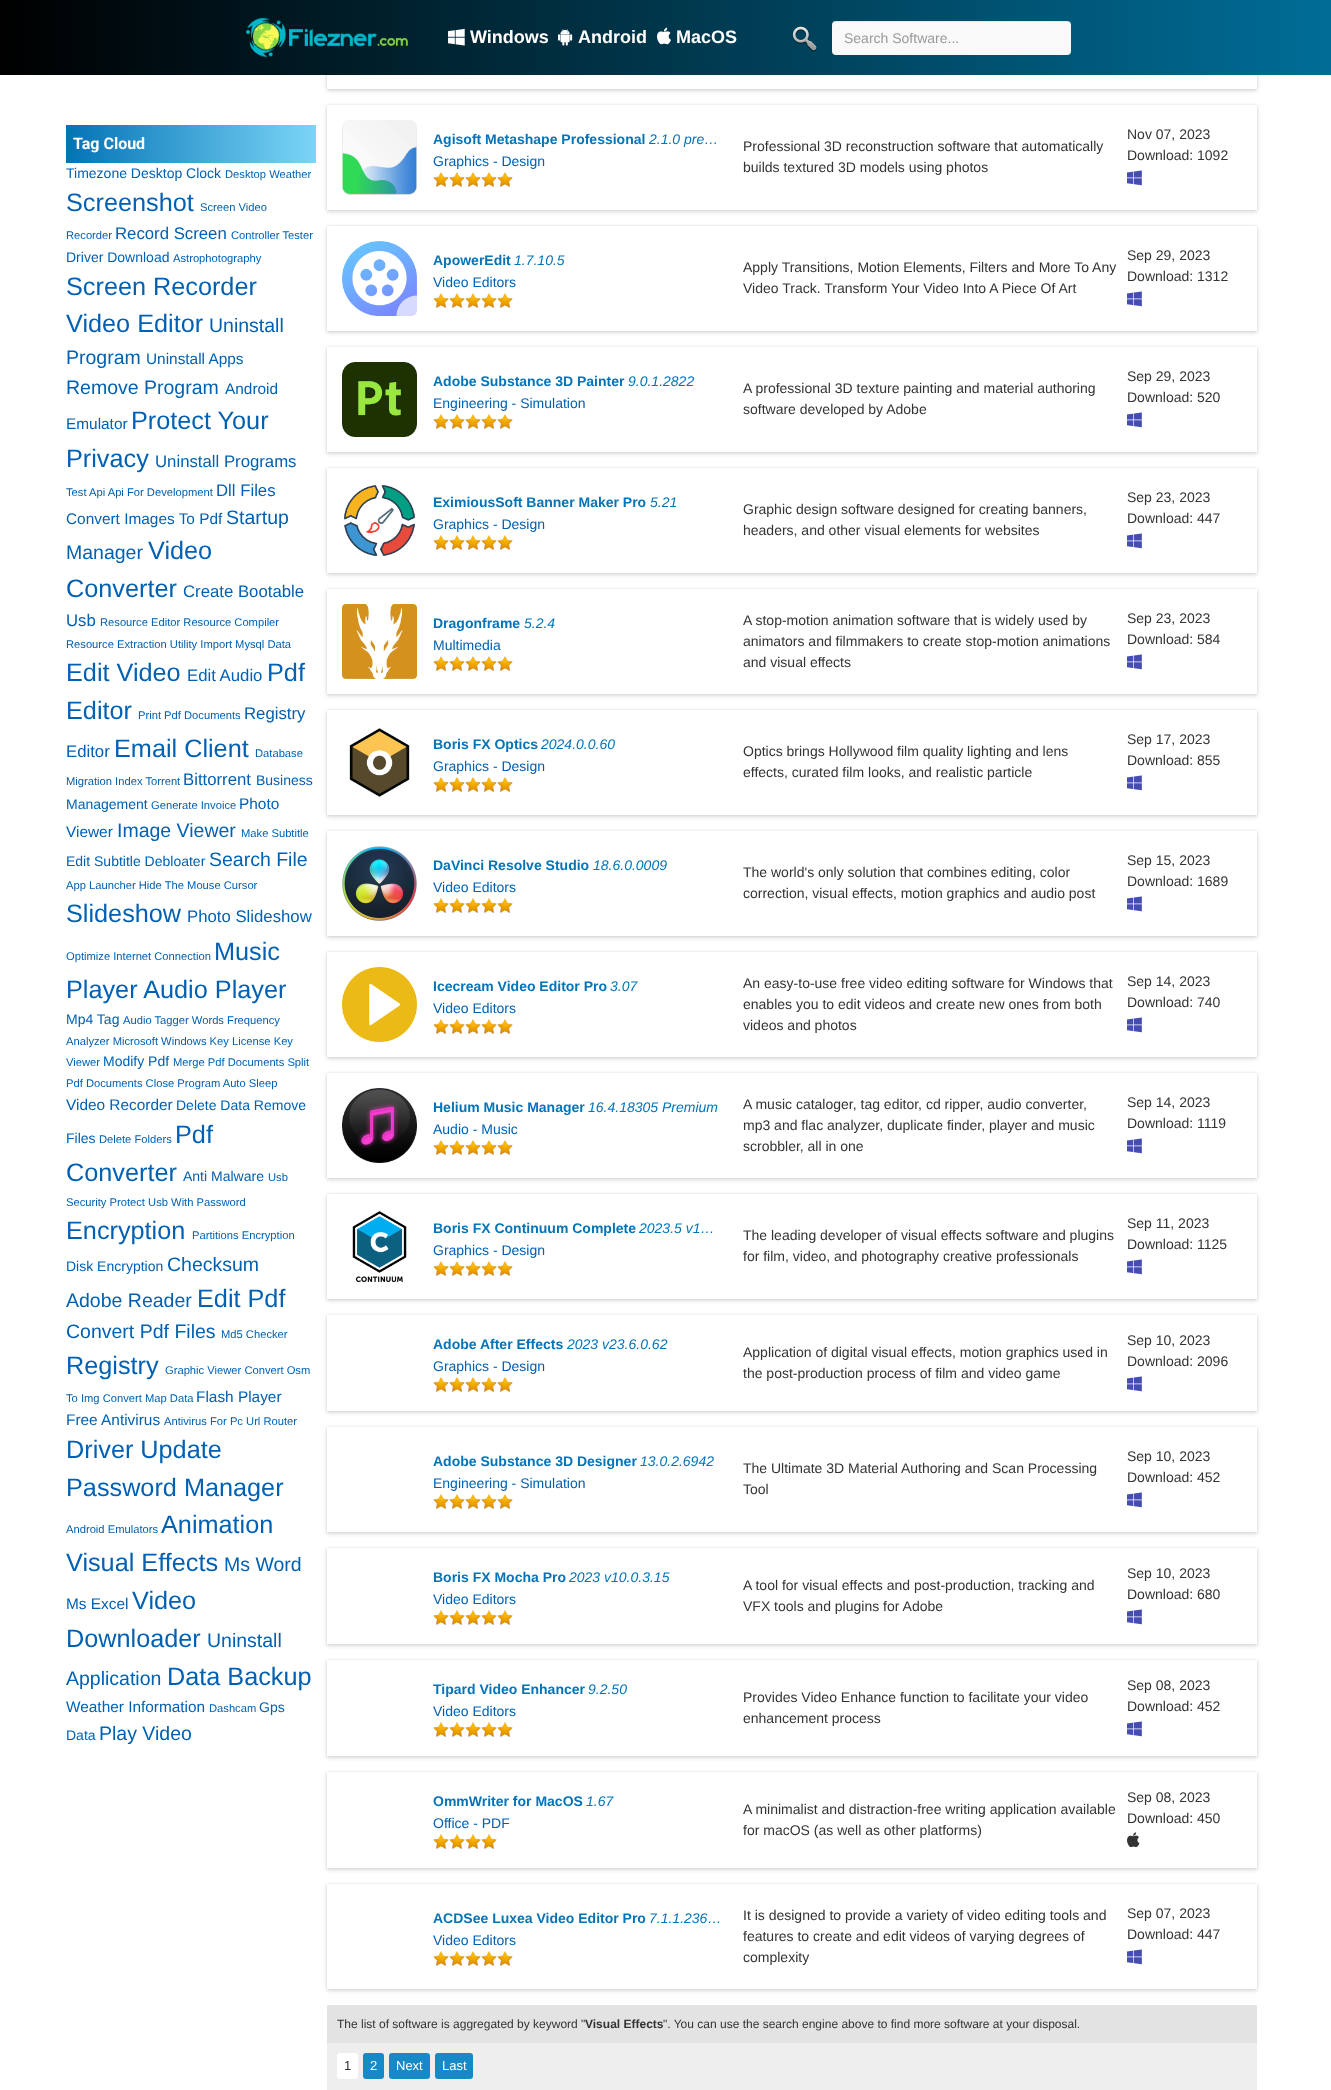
<!DOCTYPE html>
<meta charset="utf-8">
<style>body { margin: 0 } canvas { display: block }</style>
<canvas id="canvas" width="1331" height="2090"></canvas>
<script type="module">
  const canvas = document.getElementById("canvas");
  const ctx = canvas.getContext("2d");
  ctx.miterLimit = 4;
  ctx.fontKerning = "normal";
  async function loadImage(src) {
    const img = new Image();
    img.src = src;
    await img.decode();
    return img;
  }
  let gradient;

  ctx.fillStyle = "#ffffff";
  ctx.fillRect(0, 0, 1331, 2090);
  ctx.save();
  ctx.beginPath();
  ctx.moveTo(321, 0);
  ctx.lineTo(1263, 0);
  ctx.lineTo(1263, 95);
  ctx.lineTo(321, 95);
  ctx.closePath();
  ctx.moveTo(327, -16);
  ctx.lineTo(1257, -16);
  ctx.lineTo(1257, 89);
  ctx.lineTo(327, 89);
  ctx.closePath();
  ctx.clip("evenodd");
  ctx.fillStyle = "rgba(0, 0, 0, 0.11)";
  ctx.filter = "blur(1.5px)";
  ctx.beginPath();
  ctx.rect(327, -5, 930, 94);
  ctx.fill();
  ctx.filter = "none";
  ctx.restore();
  ctx.save();
  ctx.beginPath();
  ctx.moveTo(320, 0);
  ctx.lineTo(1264, 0);
  ctx.lineTo(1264, 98);
  ctx.lineTo(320, 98);
  ctx.closePath();
  ctx.moveTo(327, -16);
  ctx.lineTo(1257, -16);
  ctx.lineTo(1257, 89);
  ctx.lineTo(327, 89);
  ctx.closePath();
  ctx.clip("evenodd");
  ctx.fillStyle = "rgba(0, 0, 0, 0.13)";
  ctx.filter = "blur(2px)";
  ctx.beginPath();
  ctx.rect(327, -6, 930, 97);
  ctx.fill();
  ctx.filter = "none";
  ctx.restore();
  gradient = ctx.createLinearGradient(0, 38, 1331, 37);
  gradient.addColorStop(0, "#000000");
  gradient.addColorStop(1, "#006d97");
  ctx.fillStyle = gradient;
  ctx.fillRect(0, 0, 1331, 75);
  ctx.drawImage(await loadImage("img1.png"), 246, 17, 162, 41);
  ctx.drawImage(await loadImage("img2.png"), 448, 28, 17, 18);
  ctx.font = "bold 18px Liberation Sans";
  ctx.fillStyle = "#ffffff";
  ctx.fillText("Windows", 470, 43);
  ctx.drawImage(await loadImage("img3.png"), 558, 29, 15, 17);
  ctx.fillText("Android", 578, 43);
  ctx.drawImage(await loadImage("img4.png"), 657, 27, 14, 18);
  ctx.fillText("MacOS", 676, 43);
  ctx.drawImage(await loadImage("img5.png"), 792, 26, 25, 26);
  ctx.fillStyle = "#f9f9f9";
  ctx.beginPath();
  ctx.roundRect(832, 21, 239, 34, 4);
  ctx.fill();
  ctx.fillStyle = "rgba(0, 0, 0, 0.07)";
  ctx.beginPath();
  ctx.moveTo(836, 22);
  ctx.lineTo(1067, 22);
  ctx.bezierCurveTo(1069, 22, 1071, 24, 1071, 26);
  ctx.bezierCurveTo(1071, 23, 1070, 21, 1067, 21);
  ctx.lineTo(836, 21);
  ctx.bezierCurveTo(833, 21, 832, 23, 832, 26);
  ctx.bezierCurveTo(832, 24, 834, 22, 836, 22);
  ctx.closePath();
  ctx.fill();
  ctx.font = "14px Liberation Sans";
  ctx.fillStyle = "#999999";
  ctx.fillText("Search Software...", 844, 43);
  gradient = ctx.createLinearGradient(66, 144, 316, 144);
  gradient.addColorStop(0, "#0373b5");
  gradient.addColorStop(1, "#7bd5f7");
  ctx.fillStyle = gradient;
  ctx.fillRect(66, 125, 250, 38);
  ctx.font = "bold 16px Roboto";
  ctx.fillStyle = "#ffffff";
  ctx.fillText("Tag Cloud", 73, 149);
  ctx.font = "14px Liberation Sans";
  ctx.fillStyle = "#0060b3";
  ctx.fillText("Timezone Desktop Clock", 66, 178);
  ctx.font = "11.2px Liberation Sans";
  ctx.fillText("Desktop Weather", 225, 178);
  ctx.font = "25.25px Liberation Sans";
  ctx.fillText("Screenshot", 66, 211);
  ctx.font = "11.2px Liberation Sans";
  ctx.fillText("Screen Video", 200, 211);
  ctx.fillText("Recorder", 66, 239);
  ctx.font = "16.75px Liberation Sans";
  ctx.fillText("Record Screen", 115, 239);
  ctx.font = "11.2px Liberation Sans";
  ctx.fillText("Controller Tester", 231, 239);
  ctx.font = "14px Liberation Sans";
  ctx.fillText("Driver Download", 66, 262);
  ctx.font = "11.2px Liberation Sans";
  ctx.fillText("Astrophotography", 173, 262);
  ctx.font = "25.25px Liberation Sans";
  ctx.fillText("Screen Recorder", 66, 295);
  ctx.fillText("Video Editor", 66, 332);
  ctx.font = "19.5px Liberation Sans";
  ctx.fillText("Uninstall", 209, 332);
  ctx.fillText("Program", 66, 364);
  ctx.font = "15.4px Liberation Sans";
  ctx.fillText("Uninstall Apps", 146, 364);
  ctx.font = "19.5px Liberation Sans";
  ctx.fillText("Remove Program", 66, 394);
  ctx.font = "15.4px Liberation Sans";
  ctx.fillText("Android", 225, 394);
  ctx.fillText("Emulator", 66, 429);
  ctx.font = "25.25px Liberation Sans";
  ctx.fillText("Protect Your", 131, 429);
  ctx.fillText("Privacy", 66, 467);
  ctx.font = "16.75px Liberation Sans";
  ctx.fillText("Uninstall Programs", 155, 467);
  ctx.font = "11.2px Liberation Sans";
  ctx.fillText("Test Api Api For Development", 66, 496);
  ctx.font = "16.75px Liberation Sans";
  ctx.fillText("Dll Files", 216, 496);
  ctx.font = "15.4px Liberation Sans";
  ctx.fillText("Convert Images To Pdf", 66, 524);
  ctx.font = "19.5px Liberation Sans";
  ctx.fillText("Startup", 226, 524);
  ctx.fillText("Manager", 66, 559);
  ctx.font = "25.25px Liberation Sans";
  ctx.fillText("Video", 148, 559);
  ctx.fillText("Converter", 66, 597);
  ctx.font = "16.75px Liberation Sans";
  ctx.fillText("Create Bootable", 183, 597);
  ctx.fillText("Usb", 66, 626);
  ctx.font = "11.2px Liberation Sans";
  ctx.fillText("Resource Editor Resource Compiler", 100, 626);
  ctx.fillText("Resource Extraction Utility Import Mysql Data", 66, 648);
  ctx.font = "25.25px Liberation Sans";
  ctx.fillText("Edit Video", 66, 681);
  ctx.font = "16.75px Liberation Sans";
  ctx.fillText("Edit Audio", 187, 681);
  ctx.font = "25.25px Liberation Sans";
  ctx.fillText("Pdf", 267, 681);
  ctx.fillText("Editor", 66, 719);
  ctx.font = "11.2px Liberation Sans";
  ctx.fillText("Print Pdf Documents", 138, 719);
  ctx.font = "16.75px Liberation Sans";
  ctx.fillText("Registry", 244, 719);
  ctx.fillText("Editor", 66, 757);
  ctx.font = "25.25px Liberation Sans";
  ctx.fillText("Email Client", 114, 757);
  ctx.font = "11.2px Liberation Sans";
  ctx.fillText("Database", 255, 757);
  ctx.fillText("Migration Index Torrent", 66, 785);
  ctx.font = "16.75px Liberation Sans";
  ctx.fillText("Bittorrent", 183, 785);
  ctx.font = "14px Liberation Sans";
  ctx.fillText("Business", 256, 785);
  ctx.fillText("Management", 66, 809);
  ctx.font = "11.2px Liberation Sans";
  ctx.fillText("Generate Invoice", 151, 809);
  ctx.font = "15.4px Liberation Sans";
  ctx.fillText("Photo", 239, 809);
  ctx.fillText("Viewer", 66, 837);
  ctx.font = "19.5px Liberation Sans";
  ctx.fillText("Image Viewer", 117, 837);
  ctx.font = "11.2px Liberation Sans";
  ctx.fillText("Make Subtitle", 241, 837);
  ctx.font = "14px Liberation Sans";
  ctx.fillText("Edit Subtitle Debloater", 66, 866);
  ctx.font = "19.5px Liberation Sans";
  ctx.fillText("Search File", 209, 866);
  ctx.font = "11.2px Liberation Sans";
  ctx.fillText("App Launcher Hide The Mouse Cursor", 66, 889);
  ctx.font = "25.25px Liberation Sans";
  ctx.fillText("Slideshow", 66, 922);
  ctx.font = "16.75px Liberation Sans";
  ctx.fillText("Photo Slideshow", 187, 922);
  ctx.font = "11.2px Liberation Sans";
  ctx.fillText("Optimize Internet Connection", 66, 960);
  ctx.font = "25.25px Liberation Sans";
  ctx.fillText("Music", 214, 960);
  ctx.fillText("Player Audio Player", 66, 998);
  ctx.font = "14px Liberation Sans";
  ctx.fillText("Mp4 Tag", 66, 1024);
  ctx.font = "11.2px Liberation Sans";
  ctx.fillText("Audio Tagger Words Frequency", 123, 1024);
  ctx.fillText("Analyzer Microsoft Windows Key License Key", 66, 1045);
  ctx.fillText("Viewer", 66, 1066);
  ctx.font = "14px Liberation Sans";
  ctx.fillText("Modify Pdf", 103, 1066);
  ctx.font = "11.2px Liberation Sans";
  ctx.fillText("Merge Pdf Documents Split", 173, 1066);
  ctx.fillText("Pdf Documents Close Program Auto Sleep", 66, 1087);
  ctx.font = "15.4px Liberation Sans";
  ctx.fillText("Video Recorder", 66, 1110);
  ctx.font = "14px Liberation Sans";
  ctx.fillText("Delete Data Remove", 176, 1110);
  ctx.fillText("Files", 66, 1143);
  ctx.font = "11.2px Liberation Sans";
  ctx.fillText("Delete Folders", 99, 1143);
  ctx.font = "25.25px Liberation Sans";
  ctx.fillText("Pdf", 175, 1143);
  ctx.fillText("Converter", 66, 1181);
  ctx.font = "14px Liberation Sans";
  ctx.fillText("Anti Malware", 183, 1181);
  ctx.font = "11.2px Liberation Sans";
  ctx.fillText("Usb", 268, 1181);
  ctx.fillText("Security Protect Usb With Password", 66, 1206);
  ctx.font = "25.25px Liberation Sans";
  ctx.fillText("Encryption", 66, 1239);
  ctx.font = "11.2px Liberation Sans";
  ctx.fillText("Partitions Encryption", 192, 1239);
  ctx.font = "14px Liberation Sans";
  ctx.fillText("Disk Encryption", 66, 1271);
  ctx.font = "19.5px Liberation Sans";
  ctx.fillText("Checksum", 167, 1271);
  ctx.fillText("Adobe Reader", 66, 1307);
  ctx.font = "25.25px Liberation Sans";
  ctx.fillText("Edit Pdf", 197, 1307);
  ctx.font = "19.5px Liberation Sans";
  ctx.fillText("Convert Pdf Files", 66, 1338);
  ctx.font = "11.2px Liberation Sans";
  ctx.fillText("Md5 Checker", 221, 1338);
  ctx.font = "25.25px Liberation Sans";
  ctx.fillText("Registry", 66, 1374);
  ctx.font = "11.2px Liberation Sans";
  ctx.fillText("Graphic Viewer Convert Osm", 165, 1374);
  ctx.fillText("To Img Convert Map Data", 66, 1402);
  ctx.font = "15.4px Liberation Sans";
  ctx.fillText("Flash Player", 196, 1402);
  ctx.fillText("Free Antivirus", 66, 1425);
  ctx.font = "11.2px Liberation Sans";
  ctx.fillText("Antivirus For Pc Url Router", 164, 1425);
  ctx.font = "25.25px Liberation Sans";
  ctx.fillText("Driver Update", 66, 1458);
  ctx.fillText("Password Manager", 66, 1496);
  ctx.font = "11.2px Liberation Sans";
  ctx.fillText("Android Emulators", 66, 1533);
  ctx.font = "25.25px Liberation Sans";
  ctx.fillText("Animation", 161, 1533);
  ctx.fillText("Visual Effects", 66, 1571);
  ctx.font = "19.5px Liberation Sans";
  ctx.fillText("Ms Word", 224, 1571);
  ctx.font = "15.4px Liberation Sans";
  ctx.fillText("Ms Excel", 66, 1609);
  ctx.font = "25.25px Liberation Sans";
  ctx.fillText("Video", 132, 1609);
  ctx.fillText("Downloader", 66, 1647);
  ctx.font = "19.5px Liberation Sans";
  ctx.fillText("Uninstall", 207, 1647);
  ctx.fillText("Application", 66, 1685);
  ctx.font = "25.25px Liberation Sans";
  ctx.fillText("Data Backup", 167, 1685);
  ctx.font = "15.4px Liberation Sans";
  ctx.fillText("Weather Information", 66, 1712);
  ctx.font = "11.2px Liberation Sans";
  ctx.fillText("Dashcam", 209, 1712);
  ctx.font = "14px Liberation Sans";
  ctx.fillText("Gps", 259, 1712);
  ctx.fillText("Data", 66, 1740);
  ctx.font = "19.5px Liberation Sans";
  ctx.fillText("Play Video", 99, 1740);
  ctx.save();
  ctx.beginPath();
  ctx.moveTo(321, 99);
  ctx.lineTo(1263, 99);
  ctx.lineTo(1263, 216);
  ctx.lineTo(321, 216);
  ctx.closePath();
  ctx.moveTo(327, 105);
  ctx.lineTo(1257, 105);
  ctx.lineTo(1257, 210);
  ctx.lineTo(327, 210);
  ctx.closePath();
  ctx.clip("evenodd");
  ctx.fillStyle = "rgba(0, 0, 0, 0.11)";
  ctx.filter = "blur(1.5px)";
  ctx.beginPath();
  ctx.rect(327, 105, 930, 105);
  ctx.fill();
  ctx.filter = "none";
  ctx.restore();
  ctx.save();
  ctx.beginPath();
  ctx.moveTo(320, 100);
  ctx.lineTo(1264, 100);
  ctx.lineTo(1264, 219);
  ctx.lineTo(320, 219);
  ctx.closePath();
  ctx.moveTo(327, 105);
  ctx.lineTo(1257, 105);
  ctx.lineTo(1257, 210);
  ctx.lineTo(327, 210);
  ctx.closePath();
  ctx.clip("evenodd");
  ctx.fillStyle = "rgba(0, 0, 0, 0.13)";
  ctx.filter = "blur(2px)";
  ctx.beginPath();
  ctx.rect(327, 107, 930, 105);
  ctx.fill();
  ctx.filter = "none";
  ctx.restore();
  ctx.drawImage(await loadImage("img6.png"), 342, 120, 75, 75);
  ctx.font = "bold 14px Liberation Sans";
  ctx.fillStyle = "#0474b8";
  ctx.fillText("Agisoft Metashape Professional", 433, 144);
  ctx.font = "italic 14px Liberation Sans";
  ctx.fillText("2.1.0 pre…", 649, 144);
  ctx.font = "14px Liberation Sans";
  ctx.fillStyle = "#0060b3";
  ctx.fillText("Graphics - Design", 433, 166);
  ctx.drawImage(await loadImage("img7.png"), 433, 172, 80, 15);
  ctx.drawImage(await loadImage("img8.png"), 433, 172, 80, 15);
  ctx.fillStyle = "#333333";
  ctx.fillText("Professional 3D reconstruction software that automatically", 743, 151);
  ctx.fillText("builds textured 3D models using photos", 743, 172);
  ctx.fillText("Nov 07, 2023", 1127, 139);
  ctx.fillText("Download: 1092", 1127, 160);
  ctx.drawImage(await loadImage("img9.png"), 1127, 170, 15, 16);
  ctx.save();
  ctx.beginPath();
  ctx.moveTo(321, 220);
  ctx.lineTo(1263, 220);
  ctx.lineTo(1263, 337);
  ctx.lineTo(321, 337);
  ctx.closePath();
  ctx.moveTo(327, 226);
  ctx.lineTo(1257, 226);
  ctx.lineTo(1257, 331);
  ctx.lineTo(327, 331);
  ctx.closePath();
  ctx.clip("evenodd");
  ctx.fillStyle = "rgba(0, 0, 0, 0.11)";
  ctx.filter = "blur(1.5px)";
  ctx.beginPath();
  ctx.rect(327, 226, 930, 105);
  ctx.fill();
  ctx.filter = "none";
  ctx.restore();
  ctx.save();
  ctx.beginPath();
  ctx.moveTo(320, 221);
  ctx.lineTo(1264, 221);
  ctx.lineTo(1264, 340);
  ctx.lineTo(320, 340);
  ctx.closePath();
  ctx.moveTo(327, 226);
  ctx.lineTo(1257, 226);
  ctx.lineTo(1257, 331);
  ctx.lineTo(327, 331);
  ctx.closePath();
  ctx.clip("evenodd");
  ctx.fillStyle = "rgba(0, 0, 0, 0.13)";
  ctx.filter = "blur(2px)";
  ctx.beginPath();
  ctx.rect(327, 228, 930, 105);
  ctx.fill();
  ctx.filter = "none";
  ctx.restore();
  ctx.drawImage(await loadImage("img10.png"), 342, 241, 75, 75);
  ctx.font = "bold 14px Liberation Sans";
  ctx.fillStyle = "#0474b8";
  ctx.fillText("ApowerEdit", 433, 265);
  ctx.font = "italic 14px Liberation Sans";
  ctx.fillText("1.7.10.5", 514, 265);
  ctx.font = "14px Liberation Sans";
  ctx.fillStyle = "#0060b3";
  ctx.fillText("Video Editors", 433, 287);
  ctx.drawImage(await loadImage("img7.png"), 433, 293, 80, 15);
  ctx.drawImage(await loadImage("img8.png"), 433, 293, 80, 15);
  ctx.fillStyle = "#333333";
  ctx.fillText("Apply Transitions, Motion Elements, Filters and More To Any", 743, 272);
  ctx.fillText("Video Track. Transform Your Video Into A Piece Of Art", 743, 293);
  ctx.fillText("Sep 29, 2023", 1127, 260);
  ctx.fillText("Download: 1312", 1127, 281);
  ctx.drawImage(await loadImage("img9.png"), 1127, 291, 15, 16);
  ctx.save();
  ctx.beginPath();
  ctx.moveTo(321, 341);
  ctx.lineTo(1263, 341);
  ctx.lineTo(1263, 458);
  ctx.lineTo(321, 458);
  ctx.closePath();
  ctx.moveTo(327, 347);
  ctx.lineTo(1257, 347);
  ctx.lineTo(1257, 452);
  ctx.lineTo(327, 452);
  ctx.closePath();
  ctx.clip("evenodd");
  ctx.fillStyle = "rgba(0, 0, 0, 0.11)";
  ctx.filter = "blur(1.5px)";
  ctx.beginPath();
  ctx.rect(327, 347, 930, 105);
  ctx.fill();
  ctx.filter = "none";
  ctx.restore();
  ctx.save();
  ctx.beginPath();
  ctx.moveTo(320, 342);
  ctx.lineTo(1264, 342);
  ctx.lineTo(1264, 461);
  ctx.lineTo(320, 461);
  ctx.closePath();
  ctx.moveTo(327, 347);
  ctx.lineTo(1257, 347);
  ctx.lineTo(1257, 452);
  ctx.lineTo(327, 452);
  ctx.closePath();
  ctx.clip("evenodd");
  ctx.fillStyle = "rgba(0, 0, 0, 0.13)";
  ctx.filter = "blur(2px)";
  ctx.beginPath();
  ctx.rect(327, 349, 930, 105);
  ctx.fill();
  ctx.filter = "none";
  ctx.restore();
  ctx.drawImage(await loadImage("img11.png"), 342, 362, 75, 75);
  ctx.font = "bold 14px Liberation Sans";
  ctx.fillStyle = "#0474b8";
  ctx.fillText("Adobe Substance 3D Painter", 433, 386);
  ctx.font = "italic 14px Liberation Sans";
  ctx.fillText("9.0.1.2822", 628, 386);
  ctx.font = "14px Liberation Sans";
  ctx.fillStyle = "#0060b3";
  ctx.fillText("Engineering - Simulation", 433, 408);
  ctx.drawImage(await loadImage("img7.png"), 433, 414, 80, 15);
  ctx.drawImage(await loadImage("img8.png"), 433, 414, 80, 15);
  ctx.fillStyle = "#333333";
  ctx.fillText("A professional 3D texture painting and material authoring", 743, 393);
  ctx.fillText("software developed by Adobe", 743, 414);
  ctx.fillText("Sep 29, 2023", 1127, 381);
  ctx.fillText("Download: 520", 1127, 402);
  ctx.drawImage(await loadImage("img9.png"), 1127, 412, 15, 16);
  ctx.save();
  ctx.beginPath();
  ctx.moveTo(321, 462);
  ctx.lineTo(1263, 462);
  ctx.lineTo(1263, 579);
  ctx.lineTo(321, 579);
  ctx.closePath();
  ctx.moveTo(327, 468);
  ctx.lineTo(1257, 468);
  ctx.lineTo(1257, 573);
  ctx.lineTo(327, 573);
  ctx.closePath();
  ctx.clip("evenodd");
  ctx.fillStyle = "rgba(0, 0, 0, 0.11)";
  ctx.filter = "blur(1.5px)";
  ctx.beginPath();
  ctx.rect(327, 468, 930, 105);
  ctx.fill();
  ctx.filter = "none";
  ctx.restore();
  ctx.save();
  ctx.beginPath();
  ctx.moveTo(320, 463);
  ctx.lineTo(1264, 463);
  ctx.lineTo(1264, 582);
  ctx.lineTo(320, 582);
  ctx.closePath();
  ctx.moveTo(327, 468);
  ctx.lineTo(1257, 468);
  ctx.lineTo(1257, 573);
  ctx.lineTo(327, 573);
  ctx.closePath();
  ctx.clip("evenodd");
  ctx.fillStyle = "rgba(0, 0, 0, 0.13)";
  ctx.filter = "blur(2px)";
  ctx.beginPath();
  ctx.rect(327, 470, 930, 105);
  ctx.fill();
  ctx.filter = "none";
  ctx.restore();
  ctx.drawImage(await loadImage("img12.png"), 344, 485, 71, 71);
  ctx.font = "bold 14px Liberation Sans";
  ctx.fillStyle = "#0474b8";
  ctx.fillText("EximiousSoft Banner Maker Pro", 433, 507);
  ctx.font = "italic 14px Liberation Sans";
  ctx.fillText("5.21", 650, 507);
  ctx.font = "14px Liberation Sans";
  ctx.fillStyle = "#0060b3";
  ctx.fillText("Graphics - Design", 433, 529);
  ctx.drawImage(await loadImage("img7.png"), 433, 535, 80, 15);
  ctx.drawImage(await loadImage("img8.png"), 433, 535, 80, 15);
  ctx.fillStyle = "#333333";
  ctx.fillText("Graphic design software designed for creating banners,", 743, 514);
  ctx.fillText("headers, and other visual elements for websites", 743, 535);
  ctx.fillText("Sep 23, 2023", 1127, 502);
  ctx.fillText("Download: 447", 1127, 523);
  ctx.drawImage(await loadImage("img9.png"), 1127, 533, 15, 16);
  ctx.save();
  ctx.beginPath();
  ctx.moveTo(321, 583);
  ctx.lineTo(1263, 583);
  ctx.lineTo(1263, 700);
  ctx.lineTo(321, 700);
  ctx.closePath();
  ctx.moveTo(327, 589);
  ctx.lineTo(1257, 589);
  ctx.lineTo(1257, 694);
  ctx.lineTo(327, 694);
  ctx.closePath();
  ctx.clip("evenodd");
  ctx.fillStyle = "rgba(0, 0, 0, 0.11)";
  ctx.filter = "blur(1.5px)";
  ctx.beginPath();
  ctx.rect(327, 589, 930, 105);
  ctx.fill();
  ctx.filter = "none";
  ctx.restore();
  ctx.save();
  ctx.beginPath();
  ctx.moveTo(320, 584);
  ctx.lineTo(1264, 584);
  ctx.lineTo(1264, 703);
  ctx.lineTo(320, 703);
  ctx.closePath();
  ctx.moveTo(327, 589);
  ctx.lineTo(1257, 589);
  ctx.lineTo(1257, 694);
  ctx.lineTo(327, 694);
  ctx.closePath();
  ctx.clip("evenodd");
  ctx.fillStyle = "rgba(0, 0, 0, 0.13)";
  ctx.filter = "blur(2px)";
  ctx.beginPath();
  ctx.rect(327, 591, 930, 105);
  ctx.fill();
  ctx.filter = "none";
  ctx.restore();
  ctx.drawImage(await loadImage("img13.png"), 342, 604, 75, 75);
  ctx.font = "bold 14px Liberation Sans";
  ctx.fillStyle = "#0474b8";
  ctx.fillText("Dragonframe", 433, 628);
  ctx.font = "italic 14px Liberation Sans";
  ctx.fillText("5.2.4", 524, 628);
  ctx.font = "14px Liberation Sans";
  ctx.fillStyle = "#0060b3";
  ctx.fillText("Multimedia", 433, 650);
  ctx.drawImage(await loadImage("img7.png"), 433, 656, 80, 15);
  ctx.drawImage(await loadImage("img8.png"), 433, 656, 80, 15);
  ctx.fillStyle = "#333333";
  ctx.fillText("A stop-motion animation software that is widely used by", 743, 625);
  ctx.fillText("animators and filmmakers to create stop-motion animations", 743, 646);
  ctx.fillText("and visual effects", 743, 667);
  ctx.fillText("Sep 23, 2023", 1127, 623);
  ctx.fillText("Download: 584", 1127, 644);
  ctx.drawImage(await loadImage("img9.png"), 1127, 654, 15, 16);
  ctx.save();
  ctx.beginPath();
  ctx.moveTo(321, 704);
  ctx.lineTo(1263, 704);
  ctx.lineTo(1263, 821);
  ctx.lineTo(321, 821);
  ctx.closePath();
  ctx.moveTo(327, 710);
  ctx.lineTo(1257, 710);
  ctx.lineTo(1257, 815);
  ctx.lineTo(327, 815);
  ctx.closePath();
  ctx.clip("evenodd");
  ctx.fillStyle = "rgba(0, 0, 0, 0.11)";
  ctx.filter = "blur(1.5px)";
  ctx.beginPath();
  ctx.rect(327, 710, 930, 105);
  ctx.fill();
  ctx.filter = "none";
  ctx.restore();
  ctx.save();
  ctx.beginPath();
  ctx.moveTo(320, 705);
  ctx.lineTo(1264, 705);
  ctx.lineTo(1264, 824);
  ctx.lineTo(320, 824);
  ctx.closePath();
  ctx.moveTo(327, 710);
  ctx.lineTo(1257, 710);
  ctx.lineTo(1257, 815);
  ctx.lineTo(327, 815);
  ctx.closePath();
  ctx.clip("evenodd");
  ctx.fillStyle = "rgba(0, 0, 0, 0.13)";
  ctx.filter = "blur(2px)";
  ctx.beginPath();
  ctx.rect(327, 712, 930, 105);
  ctx.fill();
  ctx.filter = "none";
  ctx.restore();
  ctx.drawImage(await loadImage("img14.png"), 349, 728, 61, 69);
  ctx.font = "bold 14px Liberation Sans";
  ctx.fillStyle = "#0474b8";
  ctx.fillText("Boris FX Optics", 433, 749);
  ctx.save();
  ctx.beginPath();
  ctx.rect(433, 732, 182, 24);
  ctx.clip();
  ctx.font = "italic 14px Liberation Sans";
  ctx.fillText("2024.0.0.60", 541, 749);
  ctx.restore();
  ctx.font = "14px Liberation Sans";
  ctx.fillStyle = "#0060b3";
  ctx.fillText("Graphics - Design", 433, 771);
  ctx.drawImage(await loadImage("img7.png"), 433, 777, 80, 15);
  ctx.drawImage(await loadImage("img8.png"), 433, 777, 80, 15);
  ctx.fillStyle = "#333333";
  ctx.fillText("Optics brings Hollywood film quality lighting and lens", 743, 756);
  ctx.fillText("effects, curated film looks, and realistic particle", 743, 777);
  ctx.fillText("Sep 17, 2023", 1127, 744);
  ctx.fillText("Download: 855", 1127, 765);
  ctx.drawImage(await loadImage("img9.png"), 1127, 775, 15, 16);
  ctx.save();
  ctx.beginPath();
  ctx.moveTo(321, 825);
  ctx.lineTo(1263, 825);
  ctx.lineTo(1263, 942);
  ctx.lineTo(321, 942);
  ctx.closePath();
  ctx.moveTo(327, 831);
  ctx.lineTo(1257, 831);
  ctx.lineTo(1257, 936);
  ctx.lineTo(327, 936);
  ctx.closePath();
  ctx.clip("evenodd");
  ctx.fillStyle = "rgba(0, 0, 0, 0.11)";
  ctx.filter = "blur(1.5px)";
  ctx.beginPath();
  ctx.rect(327, 831, 930, 105);
  ctx.fill();
  ctx.filter = "none";
  ctx.restore();
  ctx.save();
  ctx.beginPath();
  ctx.moveTo(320, 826);
  ctx.lineTo(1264, 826);
  ctx.lineTo(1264, 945);
  ctx.lineTo(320, 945);
  ctx.closePath();
  ctx.moveTo(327, 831);
  ctx.lineTo(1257, 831);
  ctx.lineTo(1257, 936);
  ctx.lineTo(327, 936);
  ctx.closePath();
  ctx.clip("evenodd");
  ctx.fillStyle = "rgba(0, 0, 0, 0.13)";
  ctx.filter = "blur(2px)";
  ctx.beginPath();
  ctx.rect(327, 833, 930, 105);
  ctx.fill();
  ctx.filter = "none";
  ctx.restore();
  ctx.drawImage(await loadImage("img15.png"), 342, 846, 75, 75);
  ctx.font = "bold 14px Liberation Sans";
  ctx.fillStyle = "#0474b8";
  ctx.fillText("DaVinci Resolve Studio", 433, 870);
  ctx.font = "italic 14px Liberation Sans";
  ctx.fillText("18.6.0.0009", 593, 870);
  ctx.font = "14px Liberation Sans";
  ctx.fillStyle = "#0060b3";
  ctx.fillText("Video Editors", 433, 892);
  ctx.drawImage(await loadImage("img7.png"), 433, 898, 80, 15);
  ctx.drawImage(await loadImage("img8.png"), 433, 898, 80, 15);
  ctx.fillStyle = "#333333";
  ctx.fillText("The world's only solution that combines editing, color", 743, 877);
  ctx.fillText("correction, visual effects, motion graphics and audio post", 743, 898);
  ctx.fillText("Sep 15, 2023", 1127, 865);
  ctx.fillText("Download: 1689", 1127, 886);
  ctx.drawImage(await loadImage("img9.png"), 1127, 896, 15, 16);
  ctx.save();
  ctx.beginPath();
  ctx.moveTo(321, 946);
  ctx.lineTo(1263, 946);
  ctx.lineTo(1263, 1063);
  ctx.lineTo(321, 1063);
  ctx.closePath();
  ctx.moveTo(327, 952);
  ctx.lineTo(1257, 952);
  ctx.lineTo(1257, 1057);
  ctx.lineTo(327, 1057);
  ctx.closePath();
  ctx.clip("evenodd");
  ctx.fillStyle = "rgba(0, 0, 0, 0.11)";
  ctx.filter = "blur(1.5px)";
  ctx.beginPath();
  ctx.rect(327, 952, 930, 105);
  ctx.fill();
  ctx.filter = "none";
  ctx.restore();
  ctx.save();
  ctx.beginPath();
  ctx.moveTo(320, 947);
  ctx.lineTo(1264, 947);
  ctx.lineTo(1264, 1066);
  ctx.lineTo(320, 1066);
  ctx.closePath();
  ctx.moveTo(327, 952);
  ctx.lineTo(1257, 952);
  ctx.lineTo(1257, 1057);
  ctx.lineTo(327, 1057);
  ctx.closePath();
  ctx.clip("evenodd");
  ctx.fillStyle = "rgba(0, 0, 0, 0.13)";
  ctx.filter = "blur(2px)";
  ctx.beginPath();
  ctx.rect(327, 954, 930, 105);
  ctx.fill();
  ctx.filter = "none";
  ctx.restore();
  ctx.drawImage(await loadImage("img16.png"), 342, 967, 75, 75);
  ctx.font = "bold 14px Liberation Sans";
  ctx.fillStyle = "#0474b8";
  ctx.fillText("Icecream Video Editor Pro", 433, 991);
  ctx.font = "italic 14px Liberation Sans";
  ctx.fillText("3.07", 610, 991);
  ctx.font = "14px Liberation Sans";
  ctx.fillStyle = "#0060b3";
  ctx.fillText("Video Editors", 433, 1013);
  ctx.drawImage(await loadImage("img7.png"), 433, 1019, 80, 15);
  ctx.drawImage(await loadImage("img8.png"), 433, 1019, 80, 15);
  ctx.fillStyle = "#333333";
  ctx.fillText("An easy-to-use free video editing software for Windows that", 743, 988);
  ctx.fillText("enables you to edit videos and create new ones from both", 743, 1009);
  ctx.fillText("videos and photos", 743, 1030);
  ctx.fillText("Sep 14, 2023", 1127, 986);
  ctx.fillText("Download: 740", 1127, 1007);
  ctx.drawImage(await loadImage("img9.png"), 1127, 1017, 15, 16);
  ctx.save();
  ctx.beginPath();
  ctx.moveTo(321, 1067);
  ctx.lineTo(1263, 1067);
  ctx.lineTo(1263, 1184);
  ctx.lineTo(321, 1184);
  ctx.closePath();
  ctx.moveTo(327, 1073);
  ctx.lineTo(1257, 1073);
  ctx.lineTo(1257, 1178);
  ctx.lineTo(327, 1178);
  ctx.closePath();
  ctx.clip("evenodd");
  ctx.fillStyle = "rgba(0, 0, 0, 0.11)";
  ctx.filter = "blur(1.5px)";
  ctx.beginPath();
  ctx.rect(327, 1073, 930, 105);
  ctx.fill();
  ctx.filter = "none";
  ctx.restore();
  ctx.save();
  ctx.beginPath();
  ctx.moveTo(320, 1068);
  ctx.lineTo(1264, 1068);
  ctx.lineTo(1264, 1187);
  ctx.lineTo(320, 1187);
  ctx.closePath();
  ctx.moveTo(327, 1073);
  ctx.lineTo(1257, 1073);
  ctx.lineTo(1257, 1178);
  ctx.lineTo(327, 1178);
  ctx.closePath();
  ctx.clip("evenodd");
  ctx.fillStyle = "rgba(0, 0, 0, 0.13)";
  ctx.filter = "blur(2px)";
  ctx.beginPath();
  ctx.rect(327, 1075, 930, 105);
  ctx.fill();
  ctx.filter = "none";
  ctx.restore();
  ctx.drawImage(await loadImage("img17.png"), 342, 1088, 75, 75);
  ctx.font = "bold 14px Liberation Sans";
  ctx.fillStyle = "#0474b8";
  ctx.fillText("Helium Music Manager", 433, 1112);
  ctx.font = "italic 14px Liberation Sans";
  ctx.fillText("16.4.18305 Premium", 588, 1112);
  ctx.font = "14px Liberation Sans";
  ctx.fillStyle = "#0060b3";
  ctx.fillText("Audio - Music", 433, 1134);
  ctx.drawImage(await loadImage("img7.png"), 433, 1140, 80, 15);
  ctx.drawImage(await loadImage("img8.png"), 433, 1140, 80, 15);
  ctx.fillStyle = "#333333";
  ctx.fillText("A music cataloger, tag editor, cd ripper, audio converter,", 743, 1109);
  ctx.fillText("mp3 and flac analyzer, duplicate finder, player and music", 743, 1130);
  ctx.fillText("scrobbler, all in one", 743, 1151);
  ctx.fillText("Sep 14, 2023", 1127, 1107);
  ctx.fillText("Download: 1119", 1127, 1128);
  ctx.drawImage(await loadImage("img9.png"), 1127, 1138, 15, 16);
  ctx.save();
  ctx.beginPath();
  ctx.moveTo(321, 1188);
  ctx.lineTo(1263, 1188);
  ctx.lineTo(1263, 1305);
  ctx.lineTo(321, 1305);
  ctx.closePath();
  ctx.moveTo(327, 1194);
  ctx.lineTo(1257, 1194);
  ctx.lineTo(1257, 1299);
  ctx.lineTo(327, 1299);
  ctx.closePath();
  ctx.clip("evenodd");
  ctx.fillStyle = "rgba(0, 0, 0, 0.11)";
  ctx.filter = "blur(1.5px)";
  ctx.beginPath();
  ctx.rect(327, 1194, 930, 105);
  ctx.fill();
  ctx.filter = "none";
  ctx.restore();
  ctx.save();
  ctx.beginPath();
  ctx.moveTo(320, 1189);
  ctx.lineTo(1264, 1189);
  ctx.lineTo(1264, 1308);
  ctx.lineTo(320, 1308);
  ctx.closePath();
  ctx.moveTo(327, 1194);
  ctx.lineTo(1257, 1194);
  ctx.lineTo(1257, 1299);
  ctx.lineTo(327, 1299);
  ctx.closePath();
  ctx.clip("evenodd");
  ctx.fillStyle = "rgba(0, 0, 0, 0.13)";
  ctx.filter = "blur(2px)";
  ctx.beginPath();
  ctx.rect(327, 1196, 930, 105);
  ctx.fill();
  ctx.filter = "none";
  ctx.restore();
  ctx.drawImage(await loadImage("img18.png"), 352, 1211, 55, 72);
  ctx.font = "bold 14px Liberation Sans";
  ctx.fillStyle = "#0474b8";
  ctx.fillText("Boris FX Continuum Complete", 433, 1233);
  ctx.font = "italic 14px Liberation Sans";
  ctx.fillText("2023.5 v1…", 639, 1233);
  ctx.font = "14px Liberation Sans";
  ctx.fillStyle = "#0060b3";
  ctx.fillText("Graphics - Design", 433, 1255);
  ctx.drawImage(await loadImage("img7.png"), 433, 1261, 80, 15);
  ctx.drawImage(await loadImage("img8.png"), 433, 1261, 80, 15);
  ctx.fillStyle = "#333333";
  ctx.fillText("The leading developer of visual effects software and plugins", 743, 1240);
  ctx.fillText("for film, video, and photography creative professionals", 743, 1261);
  ctx.fillText("Sep 11, 2023", 1127, 1228);
  ctx.fillText("Download: 1125", 1127, 1249);
  ctx.drawImage(await loadImage("img9.png"), 1127, 1259, 15, 16);
  ctx.save();
  ctx.beginPath();
  ctx.moveTo(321, 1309);
  ctx.lineTo(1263, 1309);
  ctx.lineTo(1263, 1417);
  ctx.lineTo(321, 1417);
  ctx.closePath();
  ctx.moveTo(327, 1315);
  ctx.lineTo(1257, 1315);
  ctx.lineTo(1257, 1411);
  ctx.lineTo(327, 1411);
  ctx.closePath();
  ctx.clip("evenodd");
  ctx.fillStyle = "rgba(0, 0, 0, 0.11)";
  ctx.filter = "blur(1.5px)";
  ctx.beginPath();
  ctx.rect(327, 1315, 930, 96);
  ctx.fill();
  ctx.filter = "none";
  ctx.restore();
  ctx.save();
  ctx.beginPath();
  ctx.moveTo(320, 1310);
  ctx.lineTo(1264, 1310);
  ctx.lineTo(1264, 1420);
  ctx.lineTo(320, 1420);
  ctx.closePath();
  ctx.moveTo(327, 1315);
  ctx.lineTo(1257, 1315);
  ctx.lineTo(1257, 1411);
  ctx.lineTo(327, 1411);
  ctx.closePath();
  ctx.clip("evenodd");
  ctx.fillStyle = "rgba(0, 0, 0, 0.13)";
  ctx.filter = "blur(2px)";
  ctx.beginPath();
  ctx.rect(327, 1317, 930, 96);
  ctx.fill();
  ctx.filter = "none";
  ctx.restore();
  ctx.font = "bold 14px Liberation Sans";
  ctx.fillStyle = "#0474b8";
  ctx.fillText("Adobe After Effects", 433, 1349);
  ctx.font = "italic 14px Liberation Sans";
  ctx.fillText("2023 v23.6.0.62", 567, 1349);
  ctx.font = "14px Liberation Sans";
  ctx.fillStyle = "#0060b3";
  ctx.fillText("Graphics - Design", 433, 1371);
  ctx.drawImage(await loadImage("img7.png"), 433, 1377, 80, 15);
  ctx.drawImage(await loadImage("img8.png"), 433, 1377, 80, 15);
  ctx.fillStyle = "#333333";
  ctx.fillText("Application of digital visual effects, motion graphics used in", 743, 1357);
  ctx.fillText("the post-production process of film and video game", 743, 1378);
  ctx.fillText("Sep 10, 2023", 1127, 1345);
  ctx.fillText("Download: 2096", 1127, 1366);
  ctx.drawImage(await loadImage("img9.png"), 1127, 1376, 15, 16);
  ctx.save();
  ctx.beginPath();
  ctx.moveTo(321, 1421);
  ctx.lineTo(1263, 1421);
  ctx.lineTo(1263, 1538);
  ctx.lineTo(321, 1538);
  ctx.closePath();
  ctx.moveTo(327, 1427);
  ctx.lineTo(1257, 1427);
  ctx.lineTo(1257, 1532);
  ctx.lineTo(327, 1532);
  ctx.closePath();
  ctx.clip("evenodd");
  ctx.fillStyle = "rgba(0, 0, 0, 0.11)";
  ctx.filter = "blur(1.5px)";
  ctx.beginPath();
  ctx.rect(327, 1427, 930, 105);
  ctx.fill();
  ctx.filter = "none";
  ctx.restore();
  ctx.save();
  ctx.beginPath();
  ctx.moveTo(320, 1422);
  ctx.lineTo(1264, 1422);
  ctx.lineTo(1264, 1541);
  ctx.lineTo(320, 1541);
  ctx.closePath();
  ctx.moveTo(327, 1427);
  ctx.lineTo(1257, 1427);
  ctx.lineTo(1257, 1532);
  ctx.lineTo(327, 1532);
  ctx.closePath();
  ctx.clip("evenodd");
  ctx.fillStyle = "rgba(0, 0, 0, 0.13)";
  ctx.filter = "blur(2px)";
  ctx.beginPath();
  ctx.rect(327, 1429, 930, 105);
  ctx.fill();
  ctx.filter = "none";
  ctx.restore();
  ctx.font = "bold 14px Liberation Sans";
  ctx.fillStyle = "#0474b8";
  ctx.fillText("Adobe Substance 3D Designer", 433, 1466);
  ctx.font = "italic 14px Liberation Sans";
  ctx.fillText("13.0.2.6942", 640, 1466);
  ctx.font = "14px Liberation Sans";
  ctx.fillStyle = "#0060b3";
  ctx.fillText("Engineering - Simulation", 433, 1488);
  ctx.drawImage(await loadImage("img7.png"), 433, 1494, 80, 15);
  ctx.drawImage(await loadImage("img8.png"), 433, 1494, 80, 15);
  ctx.fillStyle = "#333333";
  ctx.fillText("The Ultimate 3D Material Authoring and Scan Processing", 743, 1473);
  ctx.fillText("Tool", 743, 1494);
  ctx.fillText("Sep 10, 2023", 1127, 1461);
  ctx.fillText("Download: 452", 1127, 1482);
  ctx.drawImage(await loadImage("img9.png"), 1127, 1492, 15, 16);
  ctx.save();
  ctx.beginPath();
  ctx.moveTo(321, 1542);
  ctx.lineTo(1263, 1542);
  ctx.lineTo(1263, 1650);
  ctx.lineTo(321, 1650);
  ctx.closePath();
  ctx.moveTo(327, 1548);
  ctx.lineTo(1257, 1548);
  ctx.lineTo(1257, 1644);
  ctx.lineTo(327, 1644);
  ctx.closePath();
  ctx.clip("evenodd");
  ctx.fillStyle = "rgba(0, 0, 0, 0.11)";
  ctx.filter = "blur(1.5px)";
  ctx.beginPath();
  ctx.rect(327, 1548, 930, 96);
  ctx.fill();
  ctx.filter = "none";
  ctx.restore();
  ctx.save();
  ctx.beginPath();
  ctx.moveTo(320, 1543);
  ctx.lineTo(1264, 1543);
  ctx.lineTo(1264, 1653);
  ctx.lineTo(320, 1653);
  ctx.closePath();
  ctx.moveTo(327, 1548);
  ctx.lineTo(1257, 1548);
  ctx.lineTo(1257, 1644);
  ctx.lineTo(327, 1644);
  ctx.closePath();
  ctx.clip("evenodd");
  ctx.fillStyle = "rgba(0, 0, 0, 0.13)";
  ctx.filter = "blur(2px)";
  ctx.beginPath();
  ctx.rect(327, 1550, 930, 96);
  ctx.fill();
  ctx.filter = "none";
  ctx.restore();
  ctx.font = "bold 14px Liberation Sans";
  ctx.fillStyle = "#0474b8";
  ctx.fillText("Boris FX Mocha Pro", 433, 1582);
  ctx.font = "italic 14px Liberation Sans";
  ctx.fillText("2023 v10.0.3.15", 569, 1582);
  ctx.font = "14px Liberation Sans";
  ctx.fillStyle = "#0060b3";
  ctx.fillText("Video Editors", 433, 1604);
  ctx.drawImage(await loadImage("img7.png"), 433, 1610, 80, 15);
  ctx.drawImage(await loadImage("img8.png"), 433, 1610, 80, 15);
  ctx.fillStyle = "#333333";
  ctx.fillText("A tool for visual effects and post-production, tracking and", 743, 1590);
  ctx.fillText("VFX tools and plugins for Adobe", 743, 1611);
  ctx.fillText("Sep 10, 2023", 1127, 1578);
  ctx.fillText("Download: 680", 1127, 1599);
  ctx.drawImage(await loadImage("img9.png"), 1127, 1609, 15, 16);
  ctx.save();
  ctx.beginPath();
  ctx.moveTo(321, 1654);
  ctx.lineTo(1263, 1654);
  ctx.lineTo(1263, 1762);
  ctx.lineTo(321, 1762);
  ctx.closePath();
  ctx.moveTo(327, 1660);
  ctx.lineTo(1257, 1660);
  ctx.lineTo(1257, 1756);
  ctx.lineTo(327, 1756);
  ctx.closePath();
  ctx.clip("evenodd");
  ctx.fillStyle = "rgba(0, 0, 0, 0.11)";
  ctx.filter = "blur(1.5px)";
  ctx.beginPath();
  ctx.rect(327, 1660, 930, 96);
  ctx.fill();
  ctx.filter = "none";
  ctx.restore();
  ctx.save();
  ctx.beginPath();
  ctx.moveTo(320, 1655);
  ctx.lineTo(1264, 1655);
  ctx.lineTo(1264, 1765);
  ctx.lineTo(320, 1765);
  ctx.closePath();
  ctx.moveTo(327, 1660);
  ctx.lineTo(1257, 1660);
  ctx.lineTo(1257, 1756);
  ctx.lineTo(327, 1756);
  ctx.closePath();
  ctx.clip("evenodd");
  ctx.fillStyle = "rgba(0, 0, 0, 0.13)";
  ctx.filter = "blur(2px)";
  ctx.beginPath();
  ctx.rect(327, 1662, 930, 96);
  ctx.fill();
  ctx.filter = "none";
  ctx.restore();
  ctx.font = "bold 14px Liberation Sans";
  ctx.fillStyle = "#0474b8";
  ctx.fillText("Tipard Video Enhancer", 433, 1694);
  ctx.font = "italic 14px Liberation Sans";
  ctx.fillText("9.2.50", 588, 1694);
  ctx.font = "14px Liberation Sans";
  ctx.fillStyle = "#0060b3";
  ctx.fillText("Video Editors", 433, 1716);
  ctx.drawImage(await loadImage("img7.png"), 433, 1722, 80, 15);
  ctx.drawImage(await loadImage("img8.png"), 433, 1722, 80, 15);
  ctx.fillStyle = "#333333";
  ctx.fillText("Provides Video Enhance function to facilitate your video", 743, 1702);
  ctx.fillText("enhancement process", 743, 1723);
  ctx.fillText("Sep 08, 2023", 1127, 1690);
  ctx.fillText("Download: 452", 1127, 1711);
  ctx.drawImage(await loadImage("img9.png"), 1127, 1721, 15, 16);
  ctx.save();
  ctx.beginPath();
  ctx.moveTo(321, 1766);
  ctx.lineTo(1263, 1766);
  ctx.lineTo(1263, 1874);
  ctx.lineTo(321, 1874);
  ctx.closePath();
  ctx.moveTo(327, 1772);
  ctx.lineTo(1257, 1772);
  ctx.lineTo(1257, 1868);
  ctx.lineTo(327, 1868);
  ctx.closePath();
  ctx.clip("evenodd");
  ctx.fillStyle = "rgba(0, 0, 0, 0.11)";
  ctx.filter = "blur(1.5px)";
  ctx.beginPath();
  ctx.rect(327, 1772, 930, 96);
  ctx.fill();
  ctx.filter = "none";
  ctx.restore();
  ctx.save();
  ctx.beginPath();
  ctx.moveTo(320, 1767);
  ctx.lineTo(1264, 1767);
  ctx.lineTo(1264, 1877);
  ctx.lineTo(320, 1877);
  ctx.closePath();
  ctx.moveTo(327, 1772);
  ctx.lineTo(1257, 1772);
  ctx.lineTo(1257, 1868);
  ctx.lineTo(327, 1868);
  ctx.closePath();
  ctx.clip("evenodd");
  ctx.fillStyle = "rgba(0, 0, 0, 0.13)";
  ctx.filter = "blur(2px)";
  ctx.beginPath();
  ctx.rect(327, 1774, 930, 96);
  ctx.fill();
  ctx.filter = "none";
  ctx.restore();
  ctx.font = "bold 14px Liberation Sans";
  ctx.fillStyle = "#0474b8";
  ctx.fillText("OmmWriter for MacOS", 433, 1806);
  ctx.font = "italic 14px Liberation Sans";
  ctx.fillText("1.67", 586, 1806);
  ctx.font = "14px Liberation Sans";
  ctx.fillStyle = "#0060b3";
  ctx.fillText("Office - PDF", 433, 1828);
  ctx.drawImage(await loadImage("img19.png"), 433, 1834, 64, 15);
  ctx.drawImage(await loadImage("img20.png"), 433, 1834, 64, 15);
  ctx.fillStyle = "#333333";
  ctx.fillText("A minimalist and distraction-free writing application available", 743, 1814);
  ctx.fillText("for macOS (as well as other platforms)", 743, 1835);
  ctx.fillText("Sep 08, 2023", 1127, 1802);
  ctx.fillText("Download: 450", 1127, 1823);
  ctx.drawImage(await loadImage("img21.png"), 1127, 1832, 13, 16);
  ctx.save();
  ctx.beginPath();
  ctx.moveTo(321, 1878);
  ctx.lineTo(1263, 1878);
  ctx.lineTo(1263, 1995);
  ctx.lineTo(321, 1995);
  ctx.closePath();
  ctx.moveTo(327, 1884);
  ctx.lineTo(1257, 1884);
  ctx.lineTo(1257, 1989);
  ctx.lineTo(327, 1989);
  ctx.closePath();
  ctx.clip("evenodd");
  ctx.fillStyle = "rgba(0, 0, 0, 0.11)";
  ctx.filter = "blur(1.5px)";
  ctx.beginPath();
  ctx.rect(327, 1884, 930, 105);
  ctx.fill();
  ctx.filter = "none";
  ctx.restore();
  ctx.save();
  ctx.beginPath();
  ctx.moveTo(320, 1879);
  ctx.lineTo(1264, 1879);
  ctx.lineTo(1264, 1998);
  ctx.lineTo(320, 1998);
  ctx.closePath();
  ctx.moveTo(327, 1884);
  ctx.lineTo(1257, 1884);
  ctx.lineTo(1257, 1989);
  ctx.lineTo(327, 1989);
  ctx.closePath();
  ctx.clip("evenodd");
  ctx.fillStyle = "rgba(0, 0, 0, 0.13)";
  ctx.filter = "blur(2px)";
  ctx.beginPath();
  ctx.rect(327, 1886, 930, 105);
  ctx.fill();
  ctx.filter = "none";
  ctx.restore();
  ctx.font = "bold 14px Liberation Sans";
  ctx.fillStyle = "#0474b8";
  ctx.fillText("ACDSee Luxea Video Editor Pro", 433, 1923);
  ctx.font = "italic 14px Liberation Sans";
  ctx.fillText("7.1.1.236…", 649, 1923);
  ctx.font = "14px Liberation Sans";
  ctx.fillStyle = "#0060b3";
  ctx.fillText("Video Editors", 433, 1945);
  ctx.drawImage(await loadImage("img7.png"), 433, 1951, 80, 15);
  ctx.drawImage(await loadImage("img8.png"), 433, 1951, 80, 15);
  ctx.fillStyle = "#333333";
  ctx.fillText("It is designed to provide a variety of video editing tools and", 743, 1920);
  ctx.fillText("features to create and edit videos of varying degrees of", 743, 1941);
  ctx.fillText("complexity", 743, 1962);
  ctx.fillText("Sep 07, 2023", 1127, 1918);
  ctx.fillText("Download: 447", 1127, 1939);
  ctx.drawImage(await loadImage("img9.png"), 1127, 1949, 15, 16);
  ctx.fillStyle = "#e4e3e3";
  ctx.fillRect(327, 2005, 930, 38);
  ctx.font = "12px Liberation Sans";
  ctx.fillStyle = "#333333";
  ctx.fillText("The list of software is aggregated by keyword \"", 337, 2028);
  ctx.font = "bold 12px Liberation Sans";
  ctx.fillText("Visual Effects", 585, 2028);
  ctx.font = "12px Liberation Sans";
  ctx.fillText("\". You can use the search engine above to find more software at your disposal.", 663, 2028);
  ctx.fillStyle = "#eeeeee";
  ctx.fillRect(327, 2043, 930, 47);
  ctx.fillStyle = "#ffffff";
  ctx.beginPath();
  ctx.roundRect(337, 2053, 21, 26, 3);
  ctx.fill();
  ctx.font = "13px Liberation Sans";
  ctx.fillStyle = "#333333";
  ctx.fillText("1", 344, 2070);
  ctx.fillStyle = "#158ac7";
  ctx.beginPath();
  ctx.roundRect(363, 2053, 21, 26, 3);
  ctx.fill();
  ctx.fillStyle = "#ffffff";
  ctx.fillText("2", 370, 2070);
  ctx.fillStyle = "#158ac7";
  ctx.beginPath();
  ctx.roundRect(389, 2053, 41, 26, 3);
  ctx.fill();
  ctx.fillStyle = "#ffffff";
  ctx.fillText("Next", 396, 2070);
  ctx.fillStyle = "#158ac7";
  ctx.beginPath();
  ctx.roundRect(435, 2053, 38, 26, 3);
  ctx.fill();
  ctx.fillStyle = "#ffffff";
  ctx.fillText("Last", 442, 2070);
</script>
